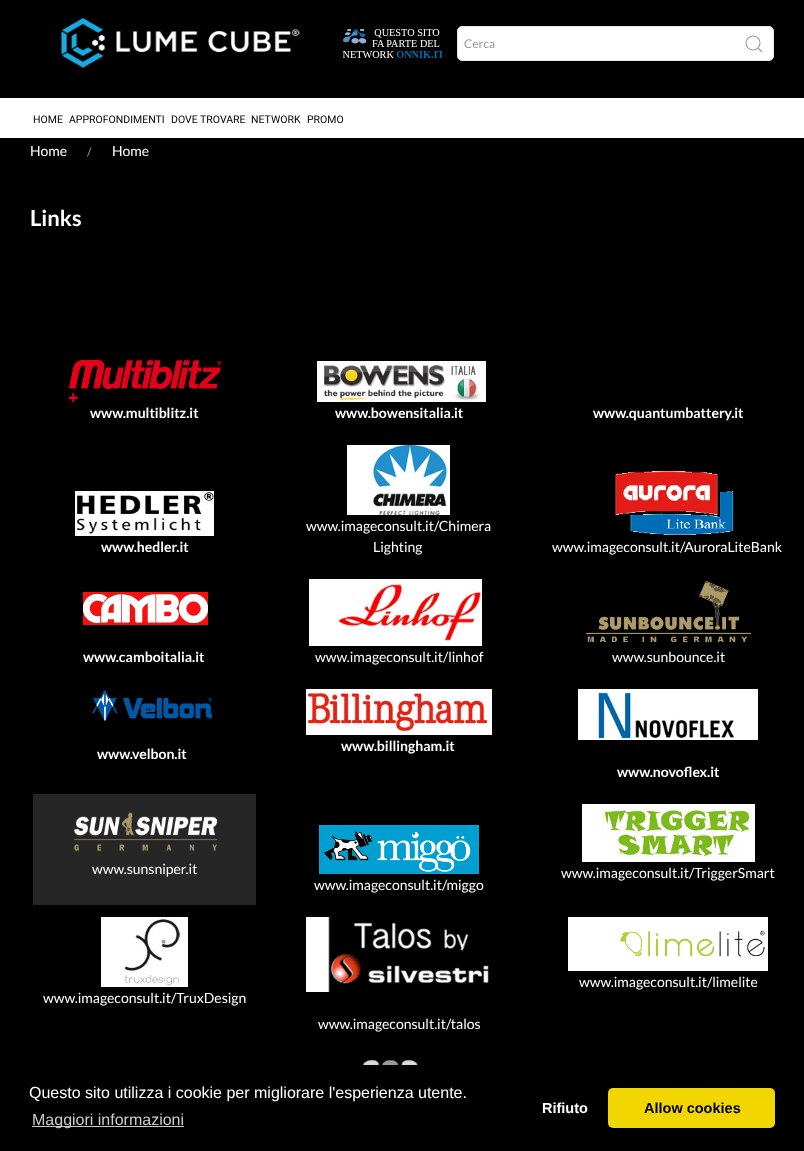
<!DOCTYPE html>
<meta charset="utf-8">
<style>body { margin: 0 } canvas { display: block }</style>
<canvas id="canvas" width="804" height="1151"></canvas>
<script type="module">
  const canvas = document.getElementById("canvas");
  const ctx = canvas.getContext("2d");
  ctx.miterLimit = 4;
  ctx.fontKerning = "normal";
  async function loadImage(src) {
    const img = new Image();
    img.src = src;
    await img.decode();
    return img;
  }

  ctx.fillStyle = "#000000";
  ctx.fillRect(0, 0, 804, 1151);
  ctx.drawImage(await loadImage("img1.png"), 61, 17, 239, 52);
  ctx.drawImage(await loadImage("img2.png"), 343, 29, 99, 29);
  ctx.fillStyle = "#ffffff";
  ctx.beginPath();
  ctx.roundRect(457.5, 26.5, 316, 34, 4.5);
  ctx.fill();
  ctx.strokeStyle = "#e5e5e5";
  ctx.stroke();
  ctx.font = "12px Lato";
  ctx.fillStyle = "#999999";
  ctx.fillText("Cerca", 464, 48);
  ctx.beginPath();
  ctx.arc(753, 43, 7, 0, Math.PI * 2);
  ctx.strokeStyle = "#999999";
  ctx.lineWidth = 1.1;
  ctx.stroke();
  ctx.beginPath();
  ctx.moveTo(758, 48);
  ctx.lineTo(762, 52);
  ctx.closePath();
  ctx.stroke();
  ctx.fillStyle = "#ffffff";
  ctx.fillRect(0, 98, 804, 40);
  ctx.font = "10.5px Roboto";
  ctx.fillStyle = "#000000";
  ctx.fillText("HOME", 33, 123);
  ctx.fillText("APPROFONDIMENTI", 69, 123);
  ctx.fillText("DOVE TROVARE", 171, 123);
  ctx.fillText("NETWORK", 251, 123);
  ctx.fillText("PROMO", 307, 123);
  ctx.font = "14px Lato";
  ctx.fillStyle = "#ffffff";
  ctx.fillText("Home", 30, 156);
  ctx.font = "12px Lato";
  ctx.fillStyle = "#999999";
  ctx.fillText("/", 87, 156);
  ctx.font = "14px Lato";
  ctx.fillStyle = "#ffffff";
  ctx.fillText("Home", 112, 156);
  ctx.font = "bold 22px Lato";
  ctx.fillText("Links", 30, 226);
  ctx.drawImage(await loadImage("img3.png"), 69, 360, 152, 42);
  ctx.font = "bold 14px Lato";
  ctx.fillText("www.multiblitz.it", 90, 418);
  ctx.drawImage(await loadImage("img4.png"), 317, 361, 169, 41);
  ctx.fillText("www.bowensitalia.it", 335, 418);
  ctx.fillText("www.quantumbattery.it", 593, 418);
  ctx.drawImage(await loadImage("img5.png"), 75, 491, 139, 45);
  ctx.fillText("www.hedler.it", 101, 552);
  ctx.drawImage(await loadImage("img6.png"), 347, 445, 103, 70);
  ctx.font = "14px Lato";
  ctx.fillText("www.imageconsult.it/Chimera", 306, 531);
  ctx.fillText("Lighting", 373, 552);
  ctx.drawImage(await loadImage("img7.png"), 615, 471, 119, 64);
  ctx.fillText("www.imageconsult.it/AuroraLiteBank", 552, 552);
  ctx.drawImage(await loadImage("img8.png"), 83, 592, 125, 33);
  ctx.font = "bold 14px Lato";
  ctx.fillText("www.camboitalia.it", 83, 662);
  ctx.drawImage(await loadImage("img9.png"), 309, 579, 173, 67);
  ctx.font = "14px Lato";
  ctx.fillText("www.imageconsult.it/linhof", 315, 662);
  ctx.drawImage(await loadImage("img10.png"), 586, 581, 165, 61);
  ctx.fillText("www.sunbounce.it", 612, 662);
  ctx.drawImage(await loadImage("img11.png"), 91, 690, 121, 31);
  ctx.font = "bold 14px Lato";
  ctx.fillText("www.velbon.it", 97, 759);
  ctx.drawImage(await loadImage("img12.png"), 306, 689, 186, 46);
  ctx.fillText("www.billingham.it", 341, 751);
  ctx.drawImage(await loadImage("img13.png"), 578, 689, 180, 51);
  ctx.fillText("www.novoflex.it", 617, 777);
  ctx.fillStyle = "#262626";
  ctx.fillRect(33, 794, 223, 111);
  ctx.drawImage(await loadImage("img14.png"), 74, 812, 144, 40);
  ctx.font = "14px Lato";
  ctx.fillStyle = "#ffffff";
  ctx.fillText("www.sunsniper.it", 92, 874);
  ctx.drawImage(await loadImage("img15.png"), 582, 804, 173, 58);
  ctx.fillText("www.imageconsult.it/TriggerSmart", 561, 878);
  ctx.drawImage(await loadImage("img16.png"), 319, 825, 160, 49);
  ctx.fillText("www.imageconsult.it/miggo", 314, 890);
  ctx.drawImage(await loadImage("img17.png"), 568, 917, 200, 54);
  ctx.fillText("www.imageconsult.it/limelite", 579, 987);
  ctx.drawImage(await loadImage("img18.png"), 101, 917, 87, 70);
  ctx.fillText("www.imageconsult.it/TruxDesign", 43, 1003);
  ctx.drawImage(await loadImage("img19.png"), 306, 917, 186, 75);
  ctx.fillText("www.imageconsult.it/talos", 318, 1029);
  ctx.drawImage(await loadImage("img20.png"), 363, 1060, 55, 5);
  ctx.font = "16px Liberation Sans";
  ctx.fillText("Questo sito utilizza i cookie per migliorare l'esperienza utente.", 29, 1098);
  ctx.fillStyle = "#cccccc";
  ctx.fillRect(32, 1126, 152, 1);
  ctx.fillText("Maggiori informazioni", 32, 1125);
  ctx.font = "bold 14.5px Liberation Sans";
  ctx.fillStyle = "#ffffff";
  ctx.fillText("Rifiuto", 542, 1113);
  ctx.fillStyle = "#f1d600";
  ctx.beginPath();
  ctx.roundRect(608, 1088, 167, 40, 5);
  ctx.fill();
  ctx.fillStyle = "#000000";
  ctx.fillText("Allow cookies", 644, 1113);
</script>
